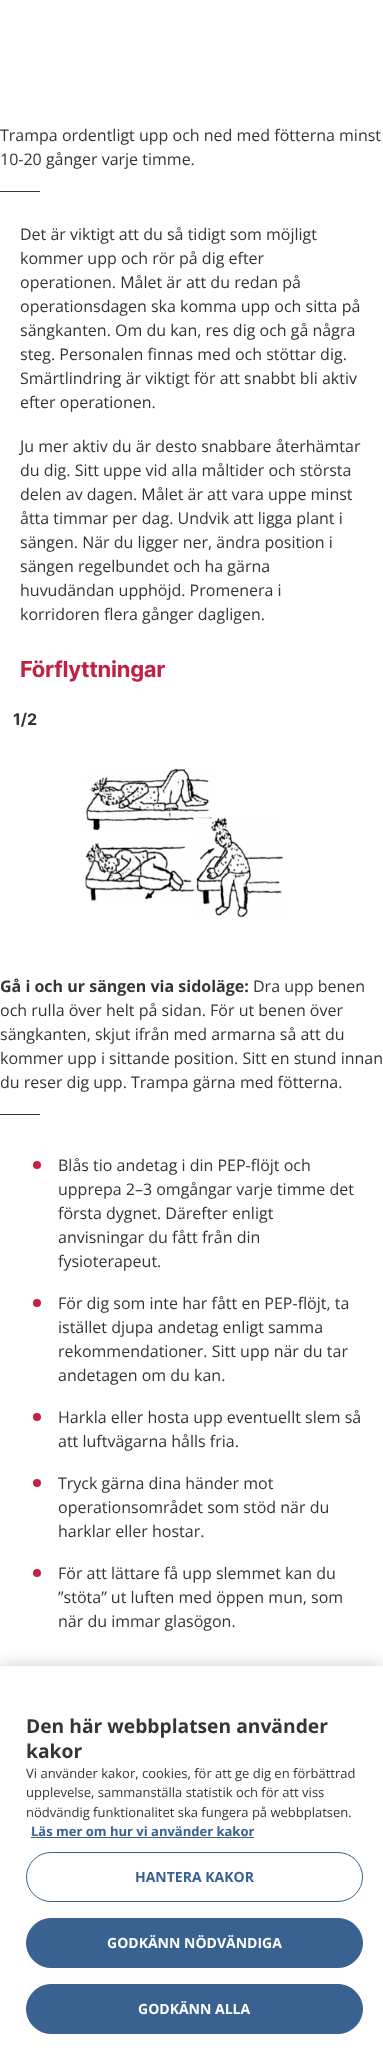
<!DOCTYPE html>
<meta charset="utf-8">
<style>body { margin: 0 } canvas { display: block }</style>
<canvas id="canvas" width="383" height="2050"></canvas>
<script type="module">
  const canvas = document.getElementById("canvas");
  const ctx = canvas.getContext("2d");
  ctx.miterLimit = 4;
  ctx.fontKerning = "normal";
  async function loadImage(src) {
    const img = new Image();
    img.src = src;
    await img.decode();
    return img;
  }

  ctx.fillStyle = "#ffffff";
  ctx.fillRect(0, 0, 383, 2050);
  ctx.font = "16px Open Sans";
  ctx.fillStyle = "#353535";
  ctx.fillText("Trampa ordentligt upp och ned med fötterna minst", 0, 141);
  ctx.fillText("10-20 gånger varje timme.", 0, 165);
  ctx.fillRect(0, 191, 40, 1);
  ctx.fillText("Det är viktigt att du så tidigt som möjligt", 20, 240);
  ctx.fillText("kommer upp och rör på dig efter", 20, 264);
  ctx.fillText("operationen. Målet är att du redan på", 20, 288);
  ctx.fillText("operationsdagen ska komma upp och sitta på", 20, 312);
  ctx.fillText("sängkanten. Om du kan, res dig och gå några", 20, 336);
  ctx.fillText("steg. Personalen finnas med och stöttar dig.", 20, 360);
  ctx.fillText("Smärtlindring är viktigt för att snabbt bli aktiv", 20, 384);
  ctx.fillText("efter operationen.", 20, 408);
  ctx.fillText("Ju mer aktiv du är desto snabbare återhämtar", 20, 452);
  ctx.fillText("du dig. Sitt uppe vid alla måltider och största", 20, 476);
  ctx.fillText("delen av dagen. Målet är att vara uppe minst", 20, 500);
  ctx.fillText("åtta timmar per dag. Undvik att ligga plant i", 20, 524);
  ctx.fillText("sängen. När du ligger ner, ändra position i", 20, 548);
  ctx.fillText("sängen regelbundet och ha gärna", 20, 572);
  ctx.fillText("huvudändan upphöjd. Promenera i", 20, 596);
  ctx.fillText("korridoren flera gånger dagligen.", 20, 620);
  ctx.letterSpacing = "-0.25px";
  ctx.font = "bold 22px Inter";
  ctx.fillStyle = "#c12143";
  ctx.fillText("Förflyttningar", 20, 677);
  ctx.letterSpacing = "0px";
  ctx.font = "bold 16px Inter";
  ctx.fillStyle = "#353535";
  ctx.fillText("1/2", 13, 725);
  ctx.drawImage(await loadImage("img1.png"), 85, 768, 199, 150);
  ctx.font = "bold 16px Open Sans";
  ctx.fillText("Gå i och ur sängen via sidoläge:", 0, 992);
  ctx.font = "16px Open Sans";
  ctx.fillText("Dra upp benen", 253, 992);
  ctx.fillText("och rulla över helt på sidan. För ut benen över", 0, 1016);
  ctx.fillText("sängkanten, skjut ifrån med armarna så att du", 0, 1040);
  ctx.fillText("kommer upp i sittande position. Sitt en stund innan", 0, 1064);
  ctx.fillText("du reser dig upp. Trampa gärna med fötterna.", 0, 1088);
  ctx.fillRect(0, 1114, 40, 1);
  ctx.fillStyle = "#c12143";
  ctx.beginPath();
  ctx.arc(37, 1165, 4, 0, Math.PI * 2);
  ctx.fill();
  ctx.fillStyle = "#353535";
  ctx.fillText("Blås tio andetag i din PEP-flöjt och", 58, 1171);
  ctx.fillText("upprepa 2–3 omgångar varje timme det", 58, 1195);
  ctx.fillText("första dygnet. Därefter enligt", 58, 1219);
  ctx.fillText("anvisningar du fått från din", 58, 1243);
  ctx.fillText("fysioterapeut.", 58, 1267);
  ctx.fillStyle = "#c12143";
  ctx.beginPath();
  ctx.arc(37, 1303, 4, 0, Math.PI * 2);
  ctx.fill();
  ctx.fillStyle = "#353535";
  ctx.fillText("För dig som inte har fått en PEP-flöjt, ta", 58, 1309);
  ctx.fillText("istället djupa andetag enligt samma", 58, 1333);
  ctx.fillText("rekommendationer. Sitt upp när du tar", 58, 1357);
  ctx.fillText("andetagen om du kan.", 58, 1381);
  ctx.fillStyle = "#c12143";
  ctx.beginPath();
  ctx.arc(37, 1417, 4, 0, Math.PI * 2);
  ctx.fill();
  ctx.fillStyle = "#353535";
  ctx.fillText("Harkla eller hosta upp eventuellt slem så", 58, 1423);
  ctx.fillText("att luftvägarna hålls fria.", 58, 1447);
  ctx.fillStyle = "#c12143";
  ctx.beginPath();
  ctx.arc(37, 1483, 4, 0, Math.PI * 2);
  ctx.fill();
  ctx.fillStyle = "#353535";
  ctx.fillText("Tryck gärna dina händer mot", 58, 1489);
  ctx.fillText("operationsområdet som stöd när du", 58, 1513);
  ctx.fillText("harklar eller hostar.", 58, 1537);
  ctx.fillStyle = "#c12143";
  ctx.beginPath();
  ctx.arc(37, 1573, 4, 0, Math.PI * 2);
  ctx.fill();
  ctx.fillStyle = "#353535";
  ctx.fillText("För att lättare få upp slemmet kan du", 58, 1579);
  ctx.fillText("”stöta” ut luften med öppen mun, som", 58, 1603);
  ctx.fillText("när du immar glasögon.", 58, 1627);
  ctx.fillStyle = "rgba(0, 0, 0, 0.2)";
  ctx.filter = "blur(9px)";
  ctx.beginPath();
  ctx.rect(0, 1666, 383, 384);
  ctx.fill();
  ctx.filter = "none";
  ctx.fillStyle = "#ffffff";
  ctx.fillRect(0, 1666, 383, 384);
  ctx.font = "bold 19.25px Open Sans";
  ctx.fillStyle = "#353535";
  ctx.fillText("Den här webbplatsen använder", 26, 1733);
  ctx.fillText("kakor", 26, 1758);
  ctx.font = "13px Open Sans";
  ctx.fillText("Vi använder kakor, cookies, för att ge dig en förbättrad", 26, 1778);
  ctx.fillText("upplevelse, sammanställa statistik och för att viss", 26, 1797);
  ctx.fillText("nödvändig funktionalitet ska fungera på webbplatsen.", 26, 1817);
  ctx.font = "bold 13px Open Sans";
  ctx.fillStyle = "#396291";
  ctx.fillText("Läs mer om hur vi använder kakor", 31, 1836);
  ctx.fillRect(31, 1837, 223, 1);
  ctx.beginPath();
  ctx.roundRect(26.5, 1852.5, 336, 49, 24.5);
  ctx.strokeStyle = "#396291";
  ctx.stroke();
  ctx.font = "bold 14px Open Sans";
  ctx.fillText("HANTERA KAKOR", 135, 1882);
  ctx.beginPath();
  ctx.roundRect(26.5, 1918.5, 336, 49, 24.5);
  ctx.fill();
  ctx.stroke();
  ctx.fillStyle = "#ffffff";
  ctx.fillText("GODKÄNN NÖDVÄNDIGA", 107, 1948);
  ctx.fillStyle = "#396291";
  ctx.beginPath();
  ctx.roundRect(26.5, 1984.5, 336, 49, 24.5);
  ctx.fill();
  ctx.stroke();
  ctx.fillStyle = "#ffffff";
  ctx.fillText("GODKÄNN ALLA", 138, 2014);
</script>
